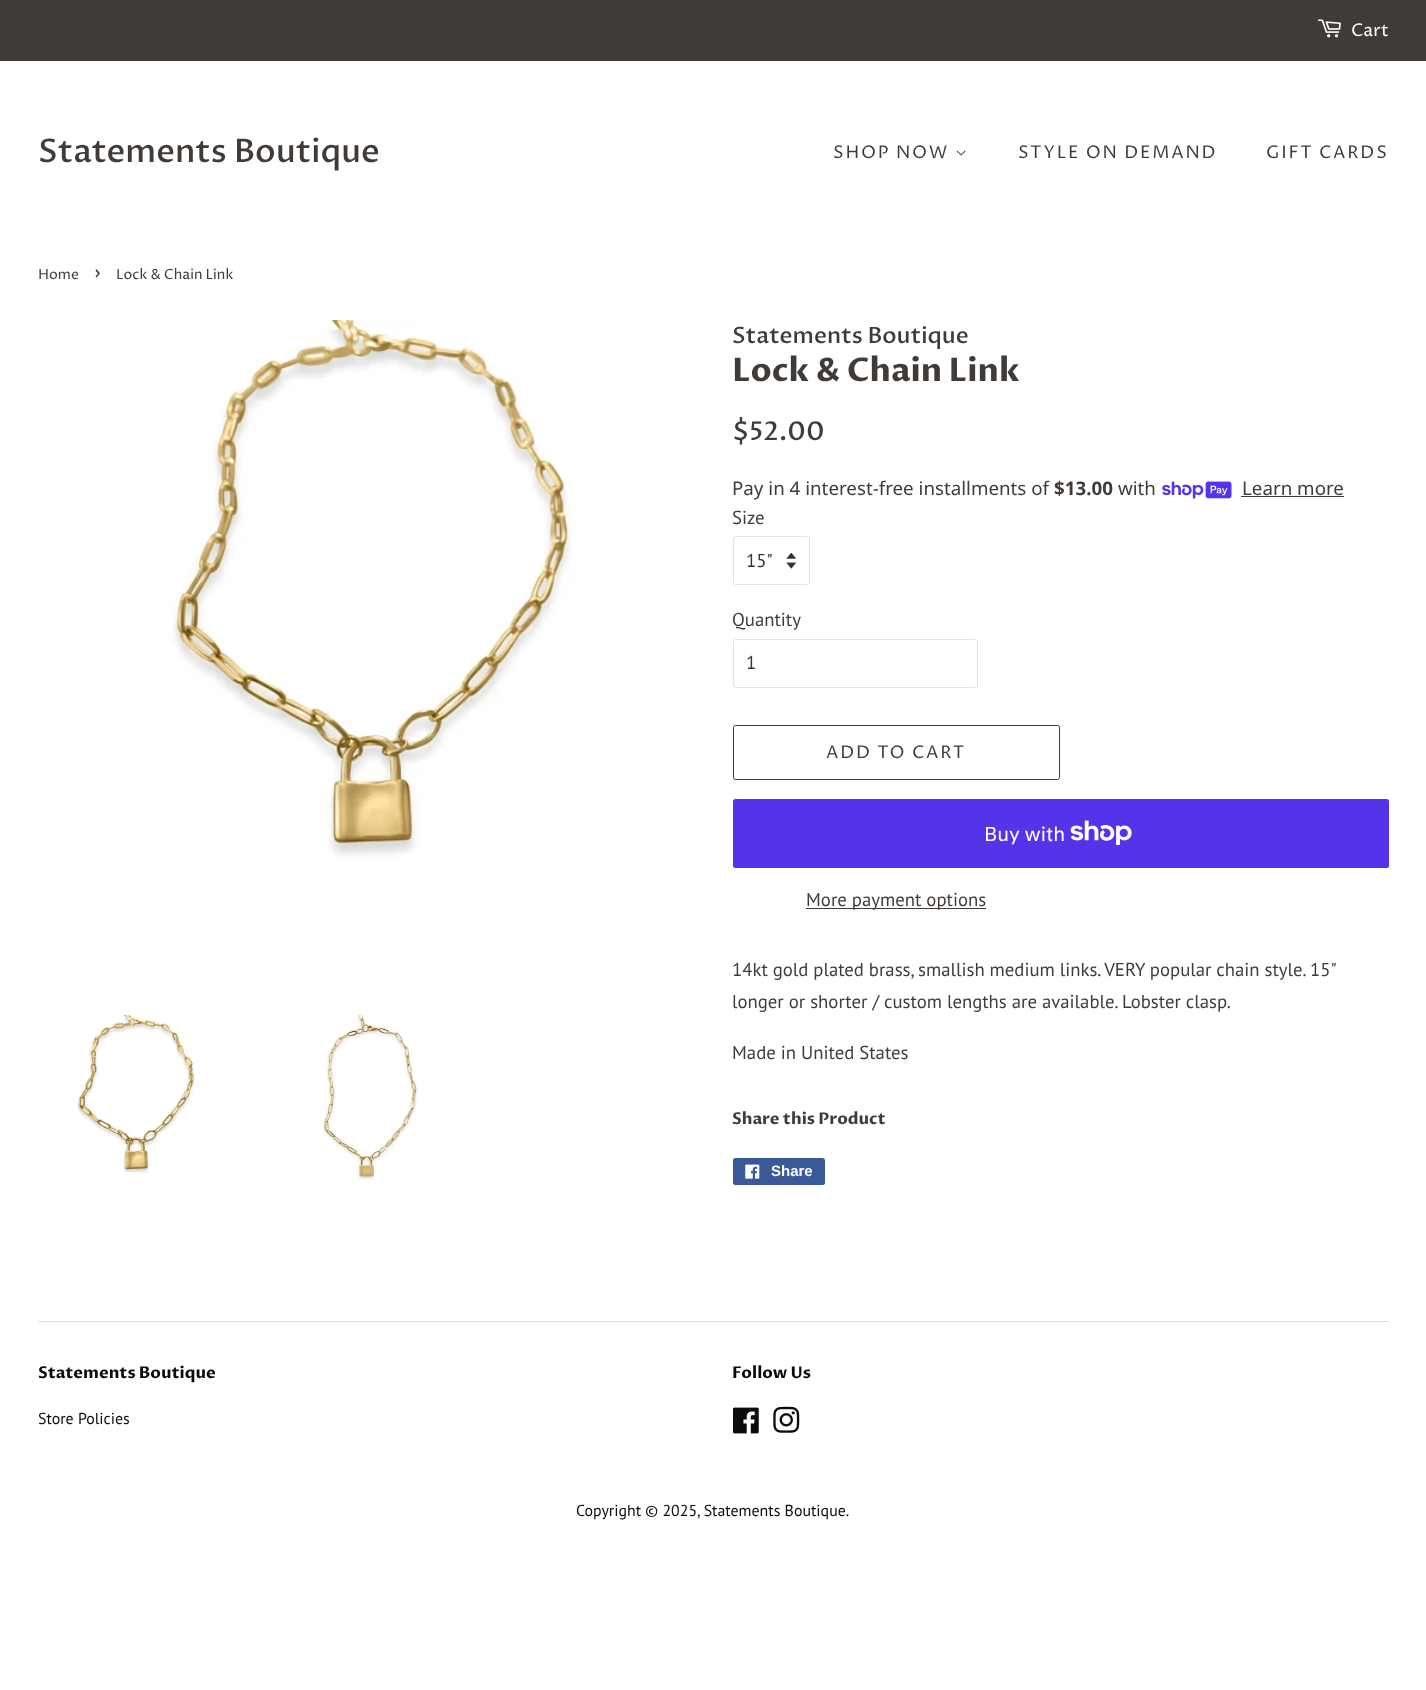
<!DOCTYPE html>
<meta charset="utf-8">
<style>body { margin: 0 } canvas { display: block }</style>
<canvas id="canvas" width="1426" height="1690"></canvas>
<script type="module">
  const canvas = document.getElementById("canvas");
  const ctx = canvas.getContext("2d");
  ctx.miterLimit = 4;
  ctx.fontKerning = "normal";
  async function loadImage(src) {
    const img = new Image();
    img.src = src;
    await img.decode();
    return img;
  }

  ctx.fillStyle = "#ffffff";
  ctx.fillRect(0, 0, 1426, 1690);
  ctx.fillStyle = "#403b37";
  ctx.fillRect(0, 0, 1426, 61);
  ctx.drawImage(await loadImage("img1.png"), 1318, 19, 23, 19);
  ctx.font = "17.5px Proza Libre";
  ctx.fillStyle = "#ffffff";
  ctx.fillText("Cart", 1351, 36);
  ctx.font = "500 32.5px Proza Libre";
  ctx.fillStyle = "#403b37";
  ctx.fillText("Statements Boutique", 38, 162);
  ctx.letterSpacing = "1.75px";
  ctx.font = "17.5px Proza Libre";
  ctx.fillText("SHOP NOW", 833, 158);
  ctx.drawImage(await loadImage("img2.png"), 956, 150, 10, 6);
  ctx.fillText("STYLE ON DEMAND", 1018, 158);
  ctx.fillText("GIFT CARDS", 1266, 158);
  ctx.letterSpacing = "0px";
  ctx.font = "14px Proza Libre";
  ctx.fillText("Home", 38, 279);
  ctx.font = "20px Proza Libre";
  ctx.fillText("›", 94, 279);
  ctx.font = "14px Proza Libre";
  ctx.fillText("Lock & Chain Link", 116, 279);
  ctx.drawImage(await loadImage("img3.png"), 171, 320, 402, 537);
  ctx.drawImage(await loadImage("img4.png"), 77, 1015, 118, 158);
  ctx.drawImage(await loadImage("img5.png"), 322, 1015, 96, 165);
  ctx.font = "500 22.5px Proza Libre";
  ctx.fillText("Statements Boutique", 732, 343);
  ctx.font = "bold 32.5px Proza Libre";
  ctx.fillText("Lock & Chain Link", 732, 381);
  ctx.font = "500 26px Proza Libre";
  ctx.fillText("$52.00", 732, 440);
  ctx.font = "18.75px Noto Sans";
  ctx.fillText("Pay in 4 interest-free installments of", 732, 495);
  ctx.font = "bold 18.75px Noto Sans";
  ctx.fillText("$13.00", 1054, 495);
  ctx.font = "18.75px Noto Sans";
  ctx.fillText("with", 1118, 495);
  ctx.drawImage(await loadImage("img6.png"), 1162, 481, 70, 18);
  ctx.fillText("Learn more", 1242, 495);
  ctx.fillRect(1241, 496, 103, 1);
  ctx.font = "18.75px PT Sans";
  ctx.fillText("Size", 732, 524);
  ctx.drawImage(await loadImage("img7.png"), 786, 553, 10, 16);
  ctx.beginPath();
  ctx.roundRect(733.5, 536.5, 76, 48, 2);
  ctx.strokeStyle = "#e2e2e1";
  ctx.stroke();
  ctx.fillStyle = "#333333";
  ctx.fillText("15\"", 746, 567);
  ctx.fillStyle = "#403b37";
  ctx.fillText("Quantity", 732, 626);
  ctx.beginPath();
  ctx.roundRect(733.5, 639.5, 244, 48, 2);
  ctx.stroke();
  ctx.fillStyle = "#333333";
  ctx.fillText("1", 746, 669);
  ctx.beginPath();
  ctx.roundRect(733.5, 725.5, 326, 54, 2);
  ctx.strokeStyle = "#403b37";
  ctx.stroke();
  ctx.letterSpacing = "1.75px";
  ctx.font = "17.5px Proza Libre";
  ctx.fillStyle = "#403b37";
  ctx.fillText("ADD TO CART", 826, 758);
  ctx.fillStyle = "#5433eb";
  ctx.beginPath();
  ctx.roundRect(733, 799, 656, 69, 2.5);
  ctx.fill();
  ctx.letterSpacing = "0px";
  ctx.font = "20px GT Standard";
  ctx.fillStyle = "#ffffff";
  ctx.fillText("Buy with", 984, 841);
  ctx.drawImage(await loadImage("img8.png"), 1070, 820, 62, 25);
  ctx.fillStyle = "#403b37";
  ctx.fillRect(806, 908, 180, 1);
  ctx.font = "18.75px PT Sans";
  ctx.fillText("More payment options", 806, 906);
  ctx.wordSpacing = "-0.1px";
  ctx.fillText("14kt gold plated brass, smallish medium links. VERY popular chain style. 15\"", 732, 976);
  ctx.wordSpacing = "0px";
  ctx.fillText("longer or shorter / custom lengths are available. Lobster clasp.", 732, 1008);
  ctx.fillText("Made in United States", 732, 1059);
  ctx.font = "bold 16.25px Proza Libre";
  ctx.fillText("Share this Product", 732, 1124);
  ctx.fillStyle = "#3b5998";
  ctx.beginPath();
  ctx.roundRect(733, 1158, 92, 27, 2.5);
  ctx.fill();
  ctx.drawImage(await loadImage("img9.png"), 745, 1164, 15, 15);
  ctx.font = "bold 15px Liberation Sans";
  ctx.fillStyle = "#ffffff";
  ctx.fillText("Share", 771, 1176);
  ctx.fillStyle = "#dddddd";
  ctx.fillRect(38, 1321, 1351, 1);
  ctx.font = "bold 16.25px Proza Libre";
  ctx.fillStyle = "#0d0c0b";
  ctx.fillText("Statements Boutique", 38, 1378);
  ctx.font = "15.9px PT Sans";
  ctx.fillText("Store Policies", 38, 1424);
  ctx.font = "bold 16.25px Proza Libre";
  ctx.fillText("Follow Us", 732, 1378);
  ctx.drawImage(await loadImage("img10.png"), 733, 1407, 26, 27);
  ctx.drawImage(await loadImage("img11.png"), 773, 1406, 27, 27);
  ctx.font = "15.9px PT Sans";
  ctx.fillText("Copyright © 2025, Statements Boutique.", 576, 1516);
</script>
